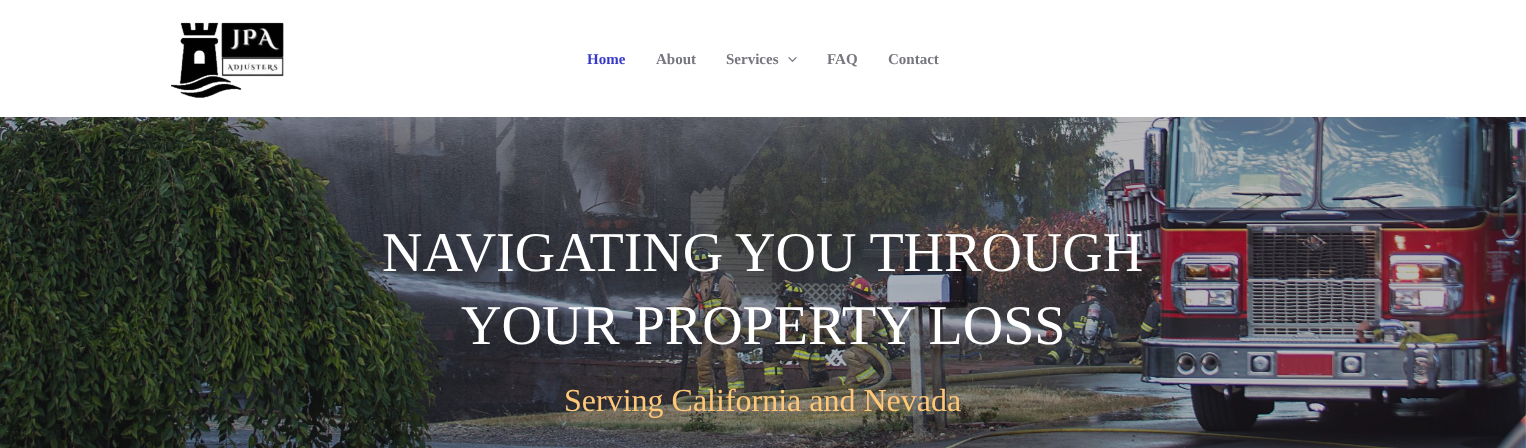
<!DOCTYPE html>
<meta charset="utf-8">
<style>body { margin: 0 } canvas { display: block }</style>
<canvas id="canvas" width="1526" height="448"></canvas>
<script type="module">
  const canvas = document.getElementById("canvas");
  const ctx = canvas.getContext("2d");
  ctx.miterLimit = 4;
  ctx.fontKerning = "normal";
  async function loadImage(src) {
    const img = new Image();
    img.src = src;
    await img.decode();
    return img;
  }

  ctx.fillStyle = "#ffffff";
  ctx.fillRect(0, 0, 1526, 448);
  ctx.drawImage(await loadImage("img1.png"), 171, 22, 113, 76);
  ctx.font = "bold 15px Liberation Serif";
  ctx.fillStyle = "#3939c8";
  ctx.fillText("Home", 587, 64);
  ctx.fillStyle = "#76767f";
  ctx.fillText("About", 656, 64);
  ctx.fillText("Services", 726, 64);
  ctx.drawImage(await loadImage("img2.png"), 788, 57, 9, 5);
  ctx.fillText("FAQ", 827, 64);
  ctx.fillText("Contact", 888, 64);
  ctx.drawImage(await loadImage("img3.png"), 0, 117, 1526, 331);
  ctx.font = "56px Liberation Serif";
  ctx.fillStyle = "#ffffff";
  ctx.fillText("NAVIGATING YOU THROUGH", 382, 271);
  ctx.fillText("YOUR PROPERTY LOSS", 461, 344);
  ctx.font = "32px Liberation Serif";
  ctx.fillStyle = "#ffc879";
  ctx.fillText("Serving California and Nevada", 564, 411);
</script>
